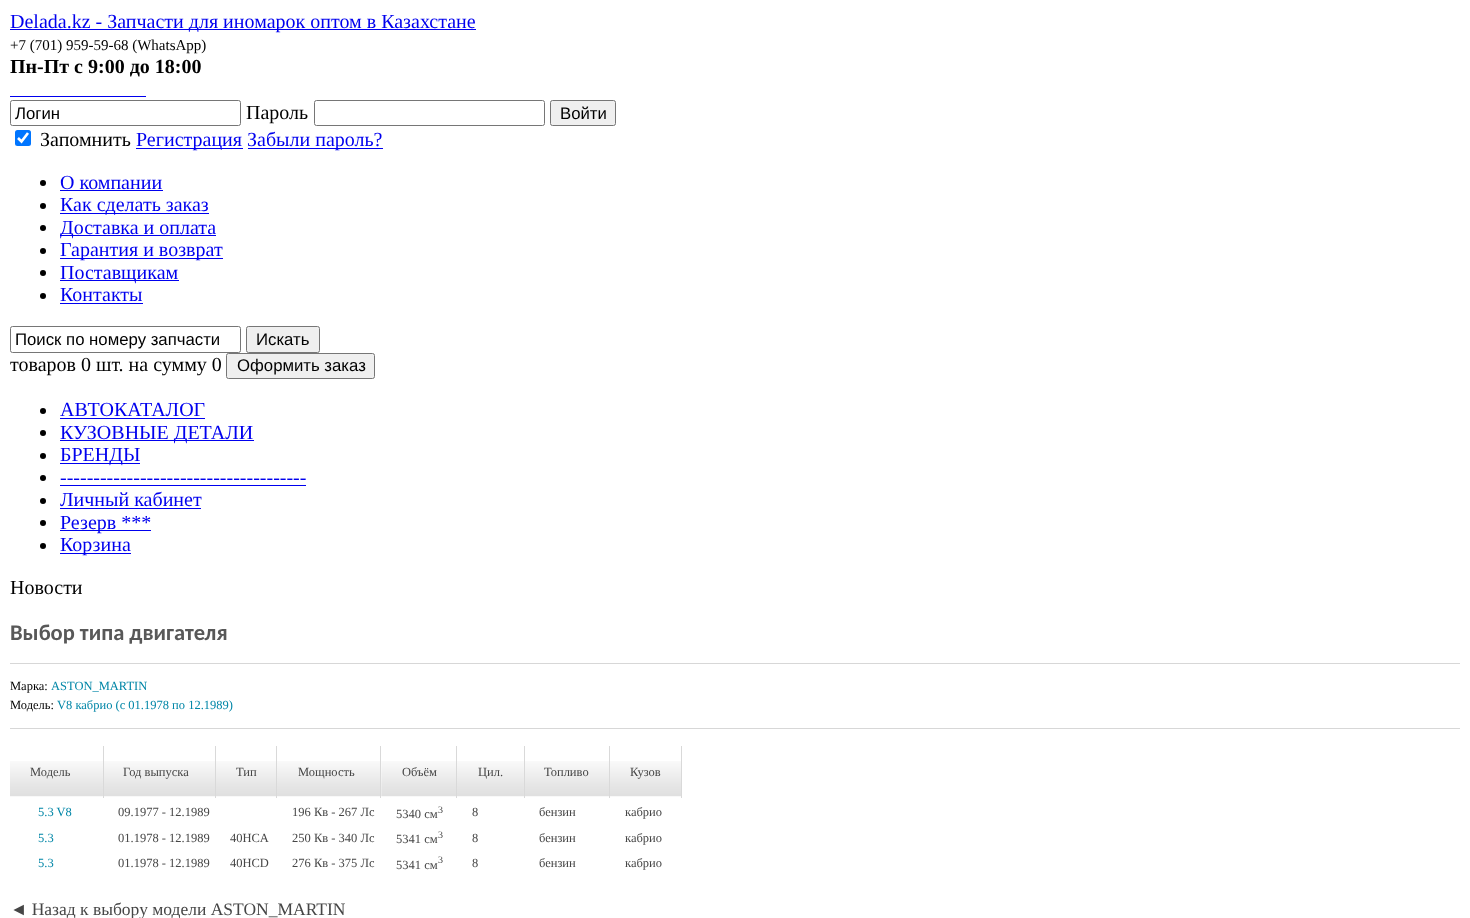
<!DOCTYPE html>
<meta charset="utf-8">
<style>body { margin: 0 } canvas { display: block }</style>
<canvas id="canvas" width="1470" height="918"></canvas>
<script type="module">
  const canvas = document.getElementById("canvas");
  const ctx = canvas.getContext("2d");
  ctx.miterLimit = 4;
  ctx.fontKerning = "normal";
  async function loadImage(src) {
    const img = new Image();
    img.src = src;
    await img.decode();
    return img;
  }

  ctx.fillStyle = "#ffffff";
  ctx.fillRect(0, 0, 1470, 918);
  ctx.fillStyle = "#0000ee";
  ctx.fillRect(10, 29, 466, 1);
  ctx.font = "20px Liberation Serif";
  ctx.fillText("Delada.kz - Запчасти для иномарок оптом в Казахстане", 10, 28);
  ctx.font = "15px Liberation Serif";
  ctx.fillStyle = "#000000";
  ctx.fillText("+7 (701) 959-59-68 (WhatsApp)", 10, 50);
  ctx.font = "bold 20px Liberation Serif";
  ctx.fillText("Пн-Пт с 9:00 до 18:00", 10, 73);
  ctx.fillStyle = "#0000ee";
  ctx.fillRect(10, 96, 136, 1);
  ctx.beginPath();
  ctx.roundRect(10.5, 100.5, 230, 25, 2);
  ctx.strokeStyle = "#767676";
  ctx.stroke();
  ctx.font = "16.75px Liberation Sans";
  ctx.fillStyle = "#000000";
  ctx.fillText("Логин", 15, 119);
  ctx.font = "20px Liberation Serif";
  ctx.fillText("Пароль", 246, 119);
  ctx.beginPath();
  ctx.roundRect(314.5, 100.5, 230, 25, 2);
  ctx.stroke();
  ctx.fillStyle = "#efefef";
  ctx.beginPath();
  ctx.roundRect(550.5, 100.5, 65, 25, 2);
  ctx.fill();
  ctx.stroke();
  ctx.font = "16.75px Liberation Sans";
  ctx.fillStyle = "#000000";
  ctx.fillText("Войти", 560, 119);
  ctx.fillStyle = "#0075ff";
  ctx.beginPath();
  ctx.roundRect(15, 130, 16, 16, 2.5);
  ctx.fill();
  ctx.beginPath();
  ctx.moveTo(18, 138);
  ctx.lineTo(21.5, 141.5);
  ctx.lineTo(28, 133);
  ctx.strokeStyle = "#ffffff";
  ctx.lineWidth = 2.6;
  ctx.stroke();
  ctx.font = "20px Liberation Serif";
  ctx.fillStyle = "#000000";
  ctx.fillText("Запомнить", 40, 146);
  ctx.fillStyle = "#0000ee";
  ctx.fillRect(136, 148, 107, 1);
  ctx.fillText("Регистрация", 136, 146);
  ctx.fillRect(248, 148, 135, 1);
  ctx.fillText("Забыли пароль?", 247, 146);
  ctx.fillStyle = "#000000";
  ctx.beginPath();
  ctx.arc(43, 183, 3, 0, Math.PI * 2);
  ctx.fill();
  ctx.fillStyle = "#0000ee";
  ctx.fillText("О компании", 60, 189);
  ctx.fillRect(60, 190, 103, 1);
  ctx.fillStyle = "#000000";
  ctx.beginPath();
  ctx.arc(43, 206, 3, 0, Math.PI * 2);
  ctx.fill();
  ctx.fillStyle = "#0000ee";
  ctx.fillRect(60, 213, 149, 1);
  ctx.fillText("Как сделать заказ", 60, 211);
  ctx.fillStyle = "#000000";
  ctx.beginPath();
  ctx.arc(43, 228, 3, 0, Math.PI * 2);
  ctx.fill();
  ctx.fillStyle = "#0000ee";
  ctx.fillRect(60, 235, 156, 1);
  ctx.fillText("Доставка и оплата", 60, 234);
  ctx.fillStyle = "#000000";
  ctx.beginPath();
  ctx.arc(43, 251, 3, 0, Math.PI * 2);
  ctx.fill();
  ctx.fillStyle = "#0000ee";
  ctx.fillRect(60, 258, 163, 1);
  ctx.fillText("Гарантия и возврат", 60, 256);
  ctx.fillStyle = "#000000";
  ctx.beginPath();
  ctx.arc(43, 273, 3, 0, Math.PI * 2);
  ctx.fill();
  ctx.fillStyle = "#0000ee";
  ctx.fillRect(60, 280, 119, 1);
  ctx.fillText("Поставщикам", 60, 279);
  ctx.fillStyle = "#000000";
  ctx.beginPath();
  ctx.arc(43, 296, 3, 0, Math.PI * 2);
  ctx.fill();
  ctx.fillStyle = "#0000ee";
  ctx.fillText("Контакты", 60, 301);
  ctx.fillRect(60, 303, 83, 1);
  ctx.beginPath();
  ctx.roundRect(10.5, 326.5, 230, 26, 2);
  ctx.strokeStyle = "#767676";
  ctx.lineWidth = 1;
  ctx.stroke();
  ctx.font = "16.75px Liberation Sans";
  ctx.fillStyle = "#000000";
  ctx.fillText("Поиск по номеру запчасти", 15, 345);
  ctx.fillStyle = "#efefef";
  ctx.beginPath();
  ctx.roundRect(246.5, 326.5, 73, 26, 2);
  ctx.fill();
  ctx.stroke();
  ctx.fillStyle = "#000000";
  ctx.fillText("Искать", 256, 345);
  ctx.font = "20px Liberation Serif";
  ctx.fillText("товаров 0 шт. на сумму 0", 10, 371);
  ctx.fillStyle = "#efefef";
  ctx.beginPath();
  ctx.roundRect(226.5, 353.5, 148, 25, 2);
  ctx.fill();
  ctx.stroke();
  ctx.font = "16.75px Liberation Sans";
  ctx.fillStyle = "#000000";
  ctx.fillText("Оформить заказ", 237, 371);
  ctx.beginPath();
  ctx.arc(43, 411, 3, 0, Math.PI * 2);
  ctx.fill();
  ctx.font = "20px Liberation Serif";
  ctx.fillStyle = "#0000ee";
  ctx.fillText("АВТОКАТАЛОГ", 60, 416);
  ctx.fillRect(60, 418, 145, 1);
  ctx.fillStyle = "#000000";
  ctx.beginPath();
  ctx.arc(43, 433, 3, 0, Math.PI * 2);
  ctx.fill();
  ctx.fillStyle = "#0000ee";
  ctx.fillRect(60, 440, 194, 1);
  ctx.fillText("КУЗОВНЫЕ ДЕТАЛИ", 60, 439);
  ctx.fillStyle = "#000000";
  ctx.beginPath();
  ctx.arc(43, 456, 3, 0, Math.PI * 2);
  ctx.fill();
  ctx.fillStyle = "#0000ee";
  ctx.fillRect(60, 463, 80, 1);
  ctx.fillText("БРЕНДЫ", 60, 461);
  ctx.fillStyle = "#000000";
  ctx.beginPath();
  ctx.arc(43, 478, 3, 0, Math.PI * 2);
  ctx.fill();
  ctx.fillStyle = "#0000ee";
  ctx.fillText("-------------------------------------", 60, 484);
  ctx.fillRect(60, 485, 246, 1);
  ctx.fillStyle = "#000000";
  ctx.beginPath();
  ctx.arc(43, 501, 3, 0, Math.PI * 2);
  ctx.fill();
  ctx.fillStyle = "#0000ee";
  ctx.fillText("Личный кабинет", 60, 506);
  ctx.fillRect(60, 508, 141, 1);
  ctx.fillStyle = "#000000";
  ctx.beginPath();
  ctx.arc(43, 523, 3, 0, Math.PI * 2);
  ctx.fill();
  ctx.fillStyle = "#0000ee";
  ctx.fillRect(60, 530, 91, 1);
  ctx.fillText("Резерв ***", 60, 529);
  ctx.fillStyle = "#000000";
  ctx.beginPath();
  ctx.arc(43, 546, 3, 0, Math.PI * 2);
  ctx.fill();
  ctx.fillStyle = "#0000ee";
  ctx.fillRect(60, 553, 71, 1);
  ctx.fillText("Корзина", 60, 551);
  ctx.fillStyle = "#000000";
  ctx.fillText("Новости", 10, 594);
  ctx.font = "bold 22.5px Carlito";
  ctx.fillStyle = "#585858";
  ctx.fillText("Выбор типа двигателя", 10, 640);
  ctx.fillStyle = "#d7d7d7";
  ctx.fillRect(10, 663, 1450, 1);
  ctx.font = "12.5px Liberation Serif";
  ctx.fillStyle = "#000000";
  ctx.fillText("Марка:", 10, 690);
  ctx.fillStyle = "#0086a7";
  ctx.fillText("ASTON_MARTIN", 51, 690);
  ctx.fillStyle = "#000000";
  ctx.fillText("Модель:", 10, 709);
  ctx.fillStyle = "#0086a7";
  ctx.fillText("V8 кабрио (с 01.1978 по 12.1989)", 57, 709);
  ctx.fillStyle = "#d7d7d7";
  ctx.fillRect(10, 728, 1450, 1);
  ctx.drawImage(await loadImage("img1.png"), 10, 761, 93, 36);
  ctx.drawImage(await loadImage("img2.png"), 102, 761, 113, 36);
  ctx.fillStyle = "#d9d9d9";
  ctx.fillRect(103, 746, 1, 52);
  ctx.fillStyle = "#464646";
  ctx.fillText("Модель", 30, 776);
  ctx.fillStyle = "#d9d9d9";
  ctx.fillRect(215, 746, 1, 52);
  ctx.fillStyle = "#464646";
  ctx.fillText("Год выпуска", 123, 776);
  ctx.drawImage(await loadImage("img3.png"), 216, 761, 62, 36);
  ctx.fillStyle = "#d9d9d9";
  ctx.fillRect(276, 746, 1, 52);
  ctx.fillStyle = "#464646";
  ctx.fillText("Тип", 236, 776);
  ctx.drawImage(await loadImage("img4.png"), 277, 761, 103, 36);
  ctx.fillStyle = "#d9d9d9";
  ctx.fillRect(380, 746, 1, 52);
  ctx.fillStyle = "#464646";
  ctx.fillText("Мощность", 298, 776);
  ctx.drawImage(await loadImage("img5.png"), 381, 761, 77, 36);
  ctx.fillStyle = "#d9d9d9";
  ctx.fillRect(456, 746, 1, 52);
  ctx.fillStyle = "#464646";
  ctx.fillText("Объём", 402, 776);
  ctx.drawImage(await loadImage("img6.png"), 457, 761, 67, 36);
  ctx.drawImage(await loadImage("img7.png"), 523, 761, 86, 36);
  ctx.fillStyle = "#d9d9d9";
  ctx.fillRect(524, 746, 1, 52);
  ctx.fillStyle = "#464646";
  ctx.fillText("Цил.", 478, 776);
  ctx.fillStyle = "#d9d9d9";
  ctx.fillRect(609, 746, 1, 52);
  ctx.fillStyle = "#464646";
  ctx.fillText("Топливо", 544, 776);
  ctx.drawImage(await loadImage("img8.png"), 610, 761, 71, 36);
  ctx.fillStyle = "#d9d9d9";
  ctx.fillRect(681, 746, 1, 52);
  ctx.fillStyle = "#464646";
  ctx.fillText("Кузов", 630, 776);
  ctx.fillStyle = "#0086a7";
  ctx.fillText("5.3 V8", 38, 816);
  ctx.fillStyle = "#464646";
  ctx.fillText("09.1977 - 12.1989", 118, 816);
  ctx.fillText("196 Кв - 267 Лс", 292, 816);
  ctx.fillText("5340 см", 396, 818);
  ctx.font = "10px Liberation Serif";
  ctx.fillText("3", 438, 813);
  ctx.font = "12.5px Liberation Serif";
  ctx.fillText("8", 472, 816);
  ctx.fillText("бензин", 539, 816);
  ctx.fillText("кабрио", 625, 816);
  ctx.fillStyle = "#0086a7";
  ctx.fillText("5.3", 38, 842);
  ctx.fillStyle = "#464646";
  ctx.fillText("01.1978 - 12.1989", 118, 842);
  ctx.fillText("40HCA", 230, 842);
  ctx.fillText("250 Кв - 340 Лс", 292, 842);
  ctx.fillText("5341 см", 396, 843);
  ctx.font = "10px Liberation Serif";
  ctx.fillText("3", 438, 838);
  ctx.font = "12.5px Liberation Serif";
  ctx.fillText("8", 472, 842);
  ctx.fillText("бензин", 539, 842);
  ctx.fillText("кабрио", 625, 842);
  ctx.fillStyle = "#0086a7";
  ctx.fillText("5.3", 38, 867);
  ctx.fillStyle = "#464646";
  ctx.fillText("01.1978 - 12.1989", 118, 867);
  ctx.fillText("40HCD", 230, 867);
  ctx.fillText("276 Кв - 375 Лс", 292, 867);
  ctx.fillText("5341 см", 396, 869);
  ctx.font = "10px Liberation Serif";
  ctx.fillText("3", 438, 863);
  ctx.font = "12.5px Liberation Serif";
  ctx.fillText("8", 472, 867);
  ctx.fillText("бензин", 539, 867);
  ctx.fillText("кабрио", 625, 867);
  ctx.font = "17.5px Liberation Serif";
  ctx.fillText("◄ Назад к выбору модели ASTON_MARTIN", 10, 915);
</script>
